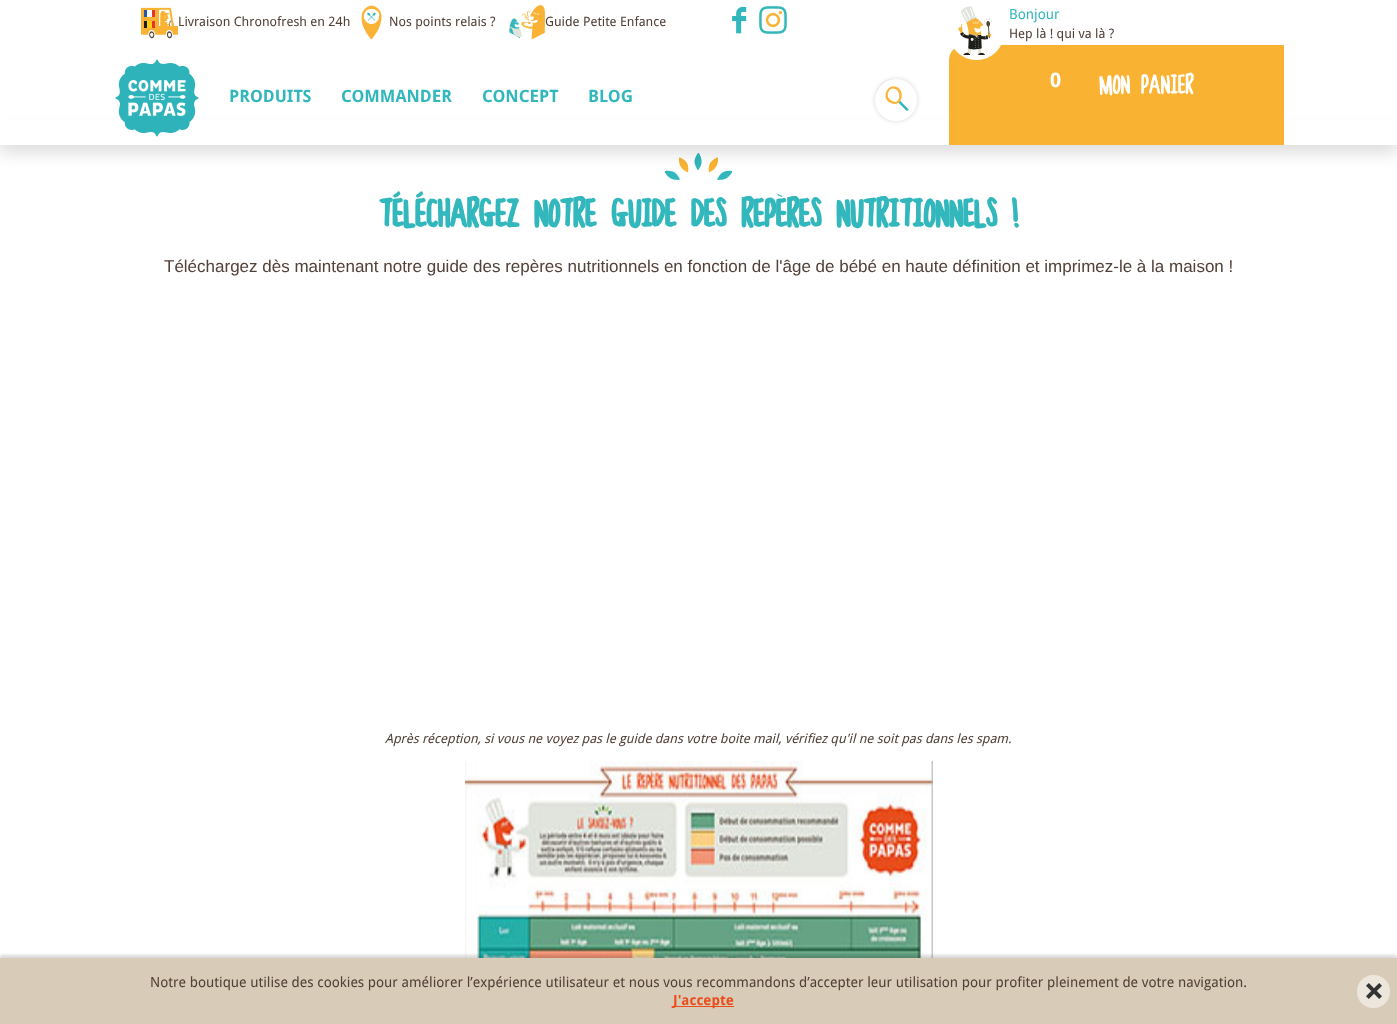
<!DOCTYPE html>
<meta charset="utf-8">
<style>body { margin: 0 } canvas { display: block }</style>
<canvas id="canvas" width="1397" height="1024"></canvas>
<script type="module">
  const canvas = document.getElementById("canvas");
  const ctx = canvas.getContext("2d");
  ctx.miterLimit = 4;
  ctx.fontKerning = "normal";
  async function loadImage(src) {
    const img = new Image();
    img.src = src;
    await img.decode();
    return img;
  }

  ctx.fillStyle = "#ffffff";
  ctx.fillRect(0, 0, 1397, 1024);
  ctx.drawImage(await loadImage("img9.png"), 665, 153, 67, 27);
  ctx.fillStyle = "rgba(0, 0, 0, 0.3)";
  ctx.filter = "blur(10px)";
  ctx.beginPath();
  ctx.roundRect(-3, 137, 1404, 10, 5);
  ctx.fill();
  ctx.filter = "none";
  ctx.fillStyle = "#ffffff";
  ctx.fillRect(0, 119, 1397, 26);
  ctx.drawImage(await loadImage("img1.png"), 115, 59, 84, 78);
  ctx.font = "bold 17px Droid Sans";
  ctx.fillStyle = "#32b7bc";
  ctx.fillText("PRODUITS", 229, 102);
  ctx.fillText("COMMANDER", 341, 102);
  ctx.fillText("CONCEPT", 482, 102);
  ctx.fillText("BLOG", 588, 102);
  ctx.fillStyle = "#f4eee6";
  ctx.beginPath();
  ctx.arc(894.5, 98.5, 19.5, 0, Math.PI * 2);
  ctx.fill();
  ctx.fillStyle = "#d9d9d9";
  ctx.filter = "blur(2.5px)";
  ctx.beginPath();
  ctx.roundRect(875, 79, 42, 42, 21);
  ctx.fill();
  ctx.filter = "none";
  ctx.fillStyle = "#ffffff";
  ctx.beginPath();
  ctx.arc(896, 100, 21, 0, Math.PI * 2);
  ctx.fill();
  ctx.drawImage(await loadImage("img2.png"), 885, 86, 24, 25);
  ctx.fillStyle = "#f9b232";
  ctx.beginPath();
  ctx.roundRect(949, 45, 335, 100, [15, 0, 0, 0]);
  ctx.fill();
  ctx.fillStyle = "#ffffff";
  ctx.beginPath();
  ctx.roundRect(949, 5, 55, 55, 27);
  ctx.fill();
  ctx.drawImage(await loadImage("img3.png"), 958, 6, 35, 49);
  ctx.font = "14px Droid Sans";
  ctx.fillStyle = "#32b7bc";
  ctx.fillText("Bonjour", 1009, 19);
  ctx.font = "13px Droid Sans";
  ctx.fillStyle = "#524138";
  ctx.fillText("Hep là ! qui va là ?", 1009, 38);
  ctx.font = "bold 20px Droid Sans";
  ctx.fillStyle = "#ffffff";
  ctx.fillText("0", 1050, 87);
  ctx.font = "25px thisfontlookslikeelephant";
  ctx.fillText("MON PANIER", 1099, 93);
  ctx.drawImage(await loadImage("img4.png"), 140, 7, 38, 32);
  ctx.font = "13px Droid Sans";
  ctx.fillStyle = "#524138";
  ctx.fillText("Livraison Chronofresh en 24h", 178, 26);
  ctx.drawImage(await loadImage("img5.png"), 361, 5, 21, 35);
  ctx.fillText("Nos points relais ?", 389, 26);
  ctx.drawImage(await loadImage("img6.png"), 509, 5, 36, 35);
  ctx.fillText("Guide Petite Enfance", 545, 26);
  ctx.drawImage(await loadImage("img7.png"), 732, 6, 15, 28);
  ctx.drawImage(await loadImage("img8.png"), 759, 6, 28, 28);
  ctx.font = "bold 36px thisfontlookslikeelephant";
  ctx.fillStyle = "#32b7bc";
  ctx.fillText("TÉLÉCHARGEZ NOTRE GUIDE DES REPÈRES NUTRITIONNELS !", 379, 226);
  ctx.font = "17px Liberation Sans";
  ctx.fillStyle = "#524138";
  ctx.fillText("Téléchargez dès maintenant notre guide des repères nutritionnels en fonction de l'âge de bébé en haute définition et imprimez-le à la maison !", 164, 272);
  ctx.font = "italic 13px Droid Sans";
  ctx.fillText("Après réception, si vous ne voyez pas le guide dans votre boite mail, vérifiez qu'il ne soit pas dans les spam.", 385, 743);
  ctx.drawImage(await loadImage("img10.png"), 465, 761, 468, 197);
  ctx.fillStyle = "rgba(0, 0, 0, 0.15)";
  ctx.filter = "blur(1.5px)";
  ctx.beginPath();
  ctx.rect(0, 955, 1397, 66);
  ctx.fill();
  ctx.filter = "none";
  ctx.fillStyle = "#d8cbb7";
  ctx.fillRect(0, 958, 1397, 66);
  ctx.font = "14px Droid Sans";
  ctx.fillStyle = "#524138";
  ctx.fillText("Notre boutique utilise des cookies pour améliorer l’expérience utilisateur et nous vous recommandons d’accepter leur utilisation pour profiter pleinement de votre navigation.", 150, 987);
  ctx.fillStyle = "#e94f1b";
  ctx.fillRect(673, 1006, 61, 1);
  ctx.font = "bold 14px Droid Sans";
  ctx.fillText("J'accepte", 673, 1005);
  ctx.fillStyle = "#ede6dd";
  ctx.beginPath();
  ctx.roundRect(1357, 975, 33, 33, 16);
  ctx.fill();
  ctx.drawImage(await loadImage("img11.png"), 1366, 983, 16, 16);
</script>
